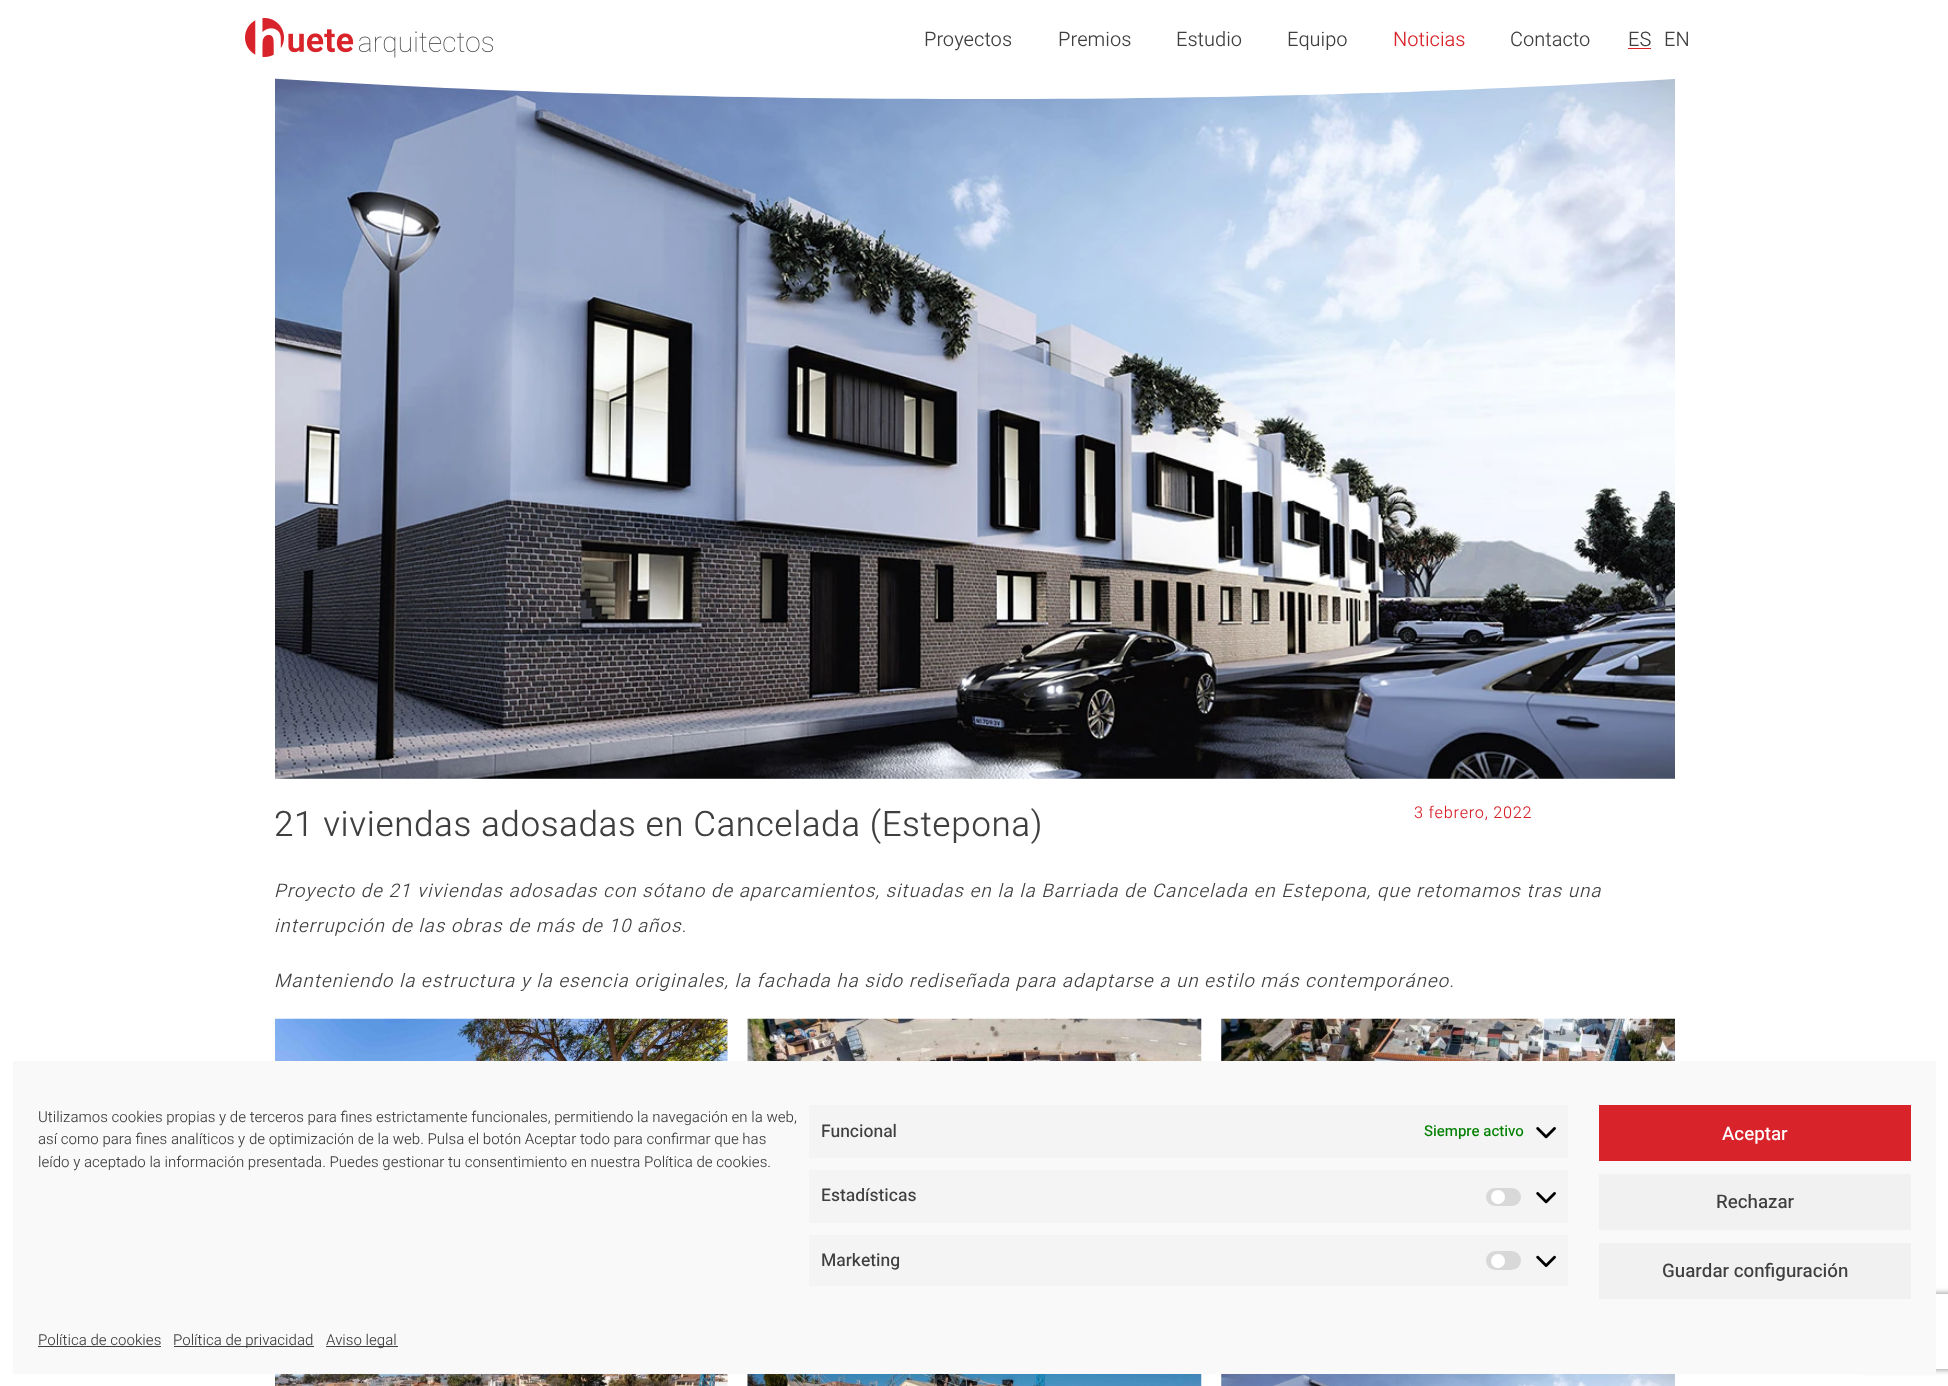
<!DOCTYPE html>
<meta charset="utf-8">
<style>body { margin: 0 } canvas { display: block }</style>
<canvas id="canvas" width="1948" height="1386"></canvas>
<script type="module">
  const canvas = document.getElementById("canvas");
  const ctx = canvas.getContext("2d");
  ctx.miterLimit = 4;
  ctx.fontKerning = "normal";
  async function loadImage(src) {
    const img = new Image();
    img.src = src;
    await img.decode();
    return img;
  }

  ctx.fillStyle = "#ffffff";
  ctx.fillRect(0, 0, 1948, 1386);
  ctx.drawImage(await loadImage("img2.png"), 275, 78, 1400, 701);
  ctx.beginPath();
  ctx.moveTo(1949, 55);
  ctx.bezierCurveTo(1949, 55, 1613, 99, 974, 99);
  ctx.bezierCurveTo(338, 99, 0, 55, 0, 55);
  ctx.lineTo(0, -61);
  ctx.lineTo(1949, -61);
  ctx.closePath();
  ctx.fill();
  ctx.drawImage(await loadImage("img1.png"), 245, 18, 248, 40);
  ctx.font = "300 20px Heebo";
  ctx.fillStyle = "#3f3f3f";
  ctx.fillText("Proyectos", 924, 46);
  ctx.fillText("Premios", 1058, 46);
  ctx.fillText("Estudio", 1176, 46);
  ctx.fillText("Equipo", 1287, 46);
  ctx.fillStyle = "#d8232a";
  ctx.fillText("Noticias", 1393, 46);
  ctx.fillStyle = "#3f3f3f";
  ctx.fillText("Contacto", 1510, 46);
  ctx.fillText("ES", 1628, 46);
  ctx.fillStyle = "#d8232a";
  ctx.fillRect(1628, 48, 23, 1);
  ctx.fillStyle = "#3f3f3f";
  ctx.fillText("EN", 1664, 46);
  ctx.letterSpacing = "0.55px";
  ctx.font = "300 35px Heebo";
  ctx.fillText("21 viviendas adosadas en Cancelada (Estepona)", 274, 836);
  ctx.letterSpacing = "0.7px";
  ctx.font = "300 16.25px Heebo";
  ctx.fillStyle = "#d8232a";
  ctx.fillText("3 febrero, 2022", 1414, 818);
  ctx.letterSpacing = "1px";
  ctx.font = "italic 300 18.75px Heebo";
  ctx.fillStyle = "#3f3f3f";
  ctx.fillText("Proyecto de 21 viviendas adosadas con sótano de aparcamientos, situadas en la la Barriada de Cancelada en Estepona, que retomamos tras una", 274, 897);
  ctx.fillText("interrupción de las obras de más de 10 años.", 274, 932);
  ctx.fillText("Manteniendo la estructura y la esencia originales, la fachada ha sido rediseñada para adaptarse a un estilo más contemporáneo.", 274, 987);
  ctx.drawImage(await loadImage("img3.png"), 275, 1018, 453, 43);
  ctx.drawImage(await loadImage("img4.png"), 747, 1018, 455, 43);
  ctx.drawImage(await loadImage("img5.png"), 1221, 1018, 454, 43);
  ctx.drawImage(await loadImage("img6.png"), 275, 1374, 453, 12);
  ctx.drawImage(await loadImage("img7.png"), 747, 1374, 455, 12);
  ctx.drawImage(await loadImage("img8.png"), 1221, 1374, 454, 12);
  ctx.save();
  ctx.beginPath();
  ctx.moveTo(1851, 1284);
  ctx.lineTo(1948, 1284);
  ctx.lineTo(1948, 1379);
  ctx.lineTo(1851, 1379);
  ctx.closePath();
  ctx.moveTo(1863.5, 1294);
  ctx.lineTo(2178.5, 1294);
  ctx.bezierCurveTo(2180, 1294, 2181, 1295, 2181, 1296.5);
  ctx.lineTo(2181, 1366.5);
  ctx.bezierCurveTo(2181, 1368, 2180, 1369, 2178.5, 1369);
  ctx.lineTo(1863.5, 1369);
  ctx.bezierCurveTo(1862, 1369, 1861, 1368, 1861, 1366.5);
  ctx.lineTo(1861, 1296.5);
  ctx.bezierCurveTo(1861, 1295, 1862, 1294, 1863.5, 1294);
  ctx.closePath();
  ctx.clip("evenodd");
  ctx.fillStyle = "#808080";
  ctx.filter = "blur(3px)";
  ctx.beginPath();
  ctx.roundRect(1861, 1294, 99, 75, 2.5);
  ctx.fill();
  ctx.filter = "none";
  ctx.restore();
  ctx.fillStyle = "#f9f9f9";
  ctx.fillRect(13, 1061, 1923, 313);
  ctx.letterSpacing = "0px";
  ctx.font = "300 15px Heebo";
  ctx.fillStyle = "#3f3f3f";
  ctx.fillText("Utilizamos cookies propias y de terceros para fines estrictamente funcionales, permitiendo la navegación en la web,", 38, 1122);
  ctx.fillText("así como para fines analíticos y de optimización de la web. Pulsa el botón Aceptar todo para confirmar que has", 38, 1144);
  ctx.fillText("leído y aceptado la información presentada. Puedes gestionar tu consentimiento en nuestra Política de cookies.", 38, 1167);
  ctx.fillStyle = "#f4f4f4";
  ctx.fillRect(809, 1105, 759, 53);
  ctx.font = "500 17.5px Heebo";
  ctx.fillStyle = "#3f3f3f";
  ctx.fillText("Funcional", 821, 1137);
  ctx.font = "500 15px Heebo";
  ctx.fillStyle = "#008000";
  ctx.fillText("Siempre activo", 1424, 1136);
  ctx.drawImage(await loadImage("img9.png"), 1536, 1127, 20, 12);
  ctx.fillStyle = "#f4f4f4";
  ctx.fillRect(809, 1170, 759, 53);
  ctx.font = "500 17.5px Heebo";
  ctx.fillStyle = "#3f3f3f";
  ctx.fillText("Estadísticas", 821, 1201);
  ctx.fillStyle = "#d8d8d8";
  ctx.beginPath();
  ctx.roundRect(1486, 1188, 35, 18, 9);
  ctx.fill();
  ctx.fillStyle = "#ffffff";
  ctx.beginPath();
  ctx.arc(1498, 1197, 7, 0, Math.PI * 2);
  ctx.fill();
  ctx.drawImage(await loadImage("img9.png"), 1536, 1192, 20, 12);
  ctx.fillStyle = "#f4f4f4";
  ctx.fillRect(809, 1235, 759, 51);
  ctx.fillStyle = "#3f3f3f";
  ctx.fillText("Marketing", 821, 1266);
  ctx.fillStyle = "#d8d8d8";
  ctx.beginPath();
  ctx.roundRect(1486, 1251, 35, 19, 9.5);
  ctx.fill();
  ctx.fillStyle = "#ffffff";
  ctx.beginPath();
  ctx.arc(1498, 1261, 7, 0, Math.PI * 2);
  ctx.fill();
  ctx.drawImage(await loadImage("img10.png"), 1536, 1255, 20, 12);
  ctx.fillStyle = "#d8232a";
  ctx.fillRect(1599, 1105, 312, 56);
  ctx.font = "500 18.75px Heebo";
  ctx.fillStyle = "#ffffff";
  ctx.fillText("Aceptar", 1722, 1140);
  ctx.fillStyle = "#f1f1f1";
  ctx.fillRect(1599, 1174, 312, 56);
  ctx.fillStyle = "#3f3f3f";
  ctx.fillText("Rechazar", 1716, 1208);
  ctx.fillStyle = "#f1f1f1";
  ctx.fillRect(1599, 1243, 312, 56);
  ctx.fillStyle = "#3f3f3f";
  ctx.fillText("Guardar configuración", 1662, 1277);
  ctx.font = "300 15px Heebo";
  ctx.fillText("Política de cookies", 38, 1345);
  ctx.fillRect(38, 1346, 123, 1);
  ctx.fillRect(174, 1346, 140, 1);
  ctx.fillText("Política de privacidad", 173, 1345);
  ctx.fillRect(326, 1346, 72, 1);
  ctx.fillText("Aviso legal", 326, 1345);
</script>
